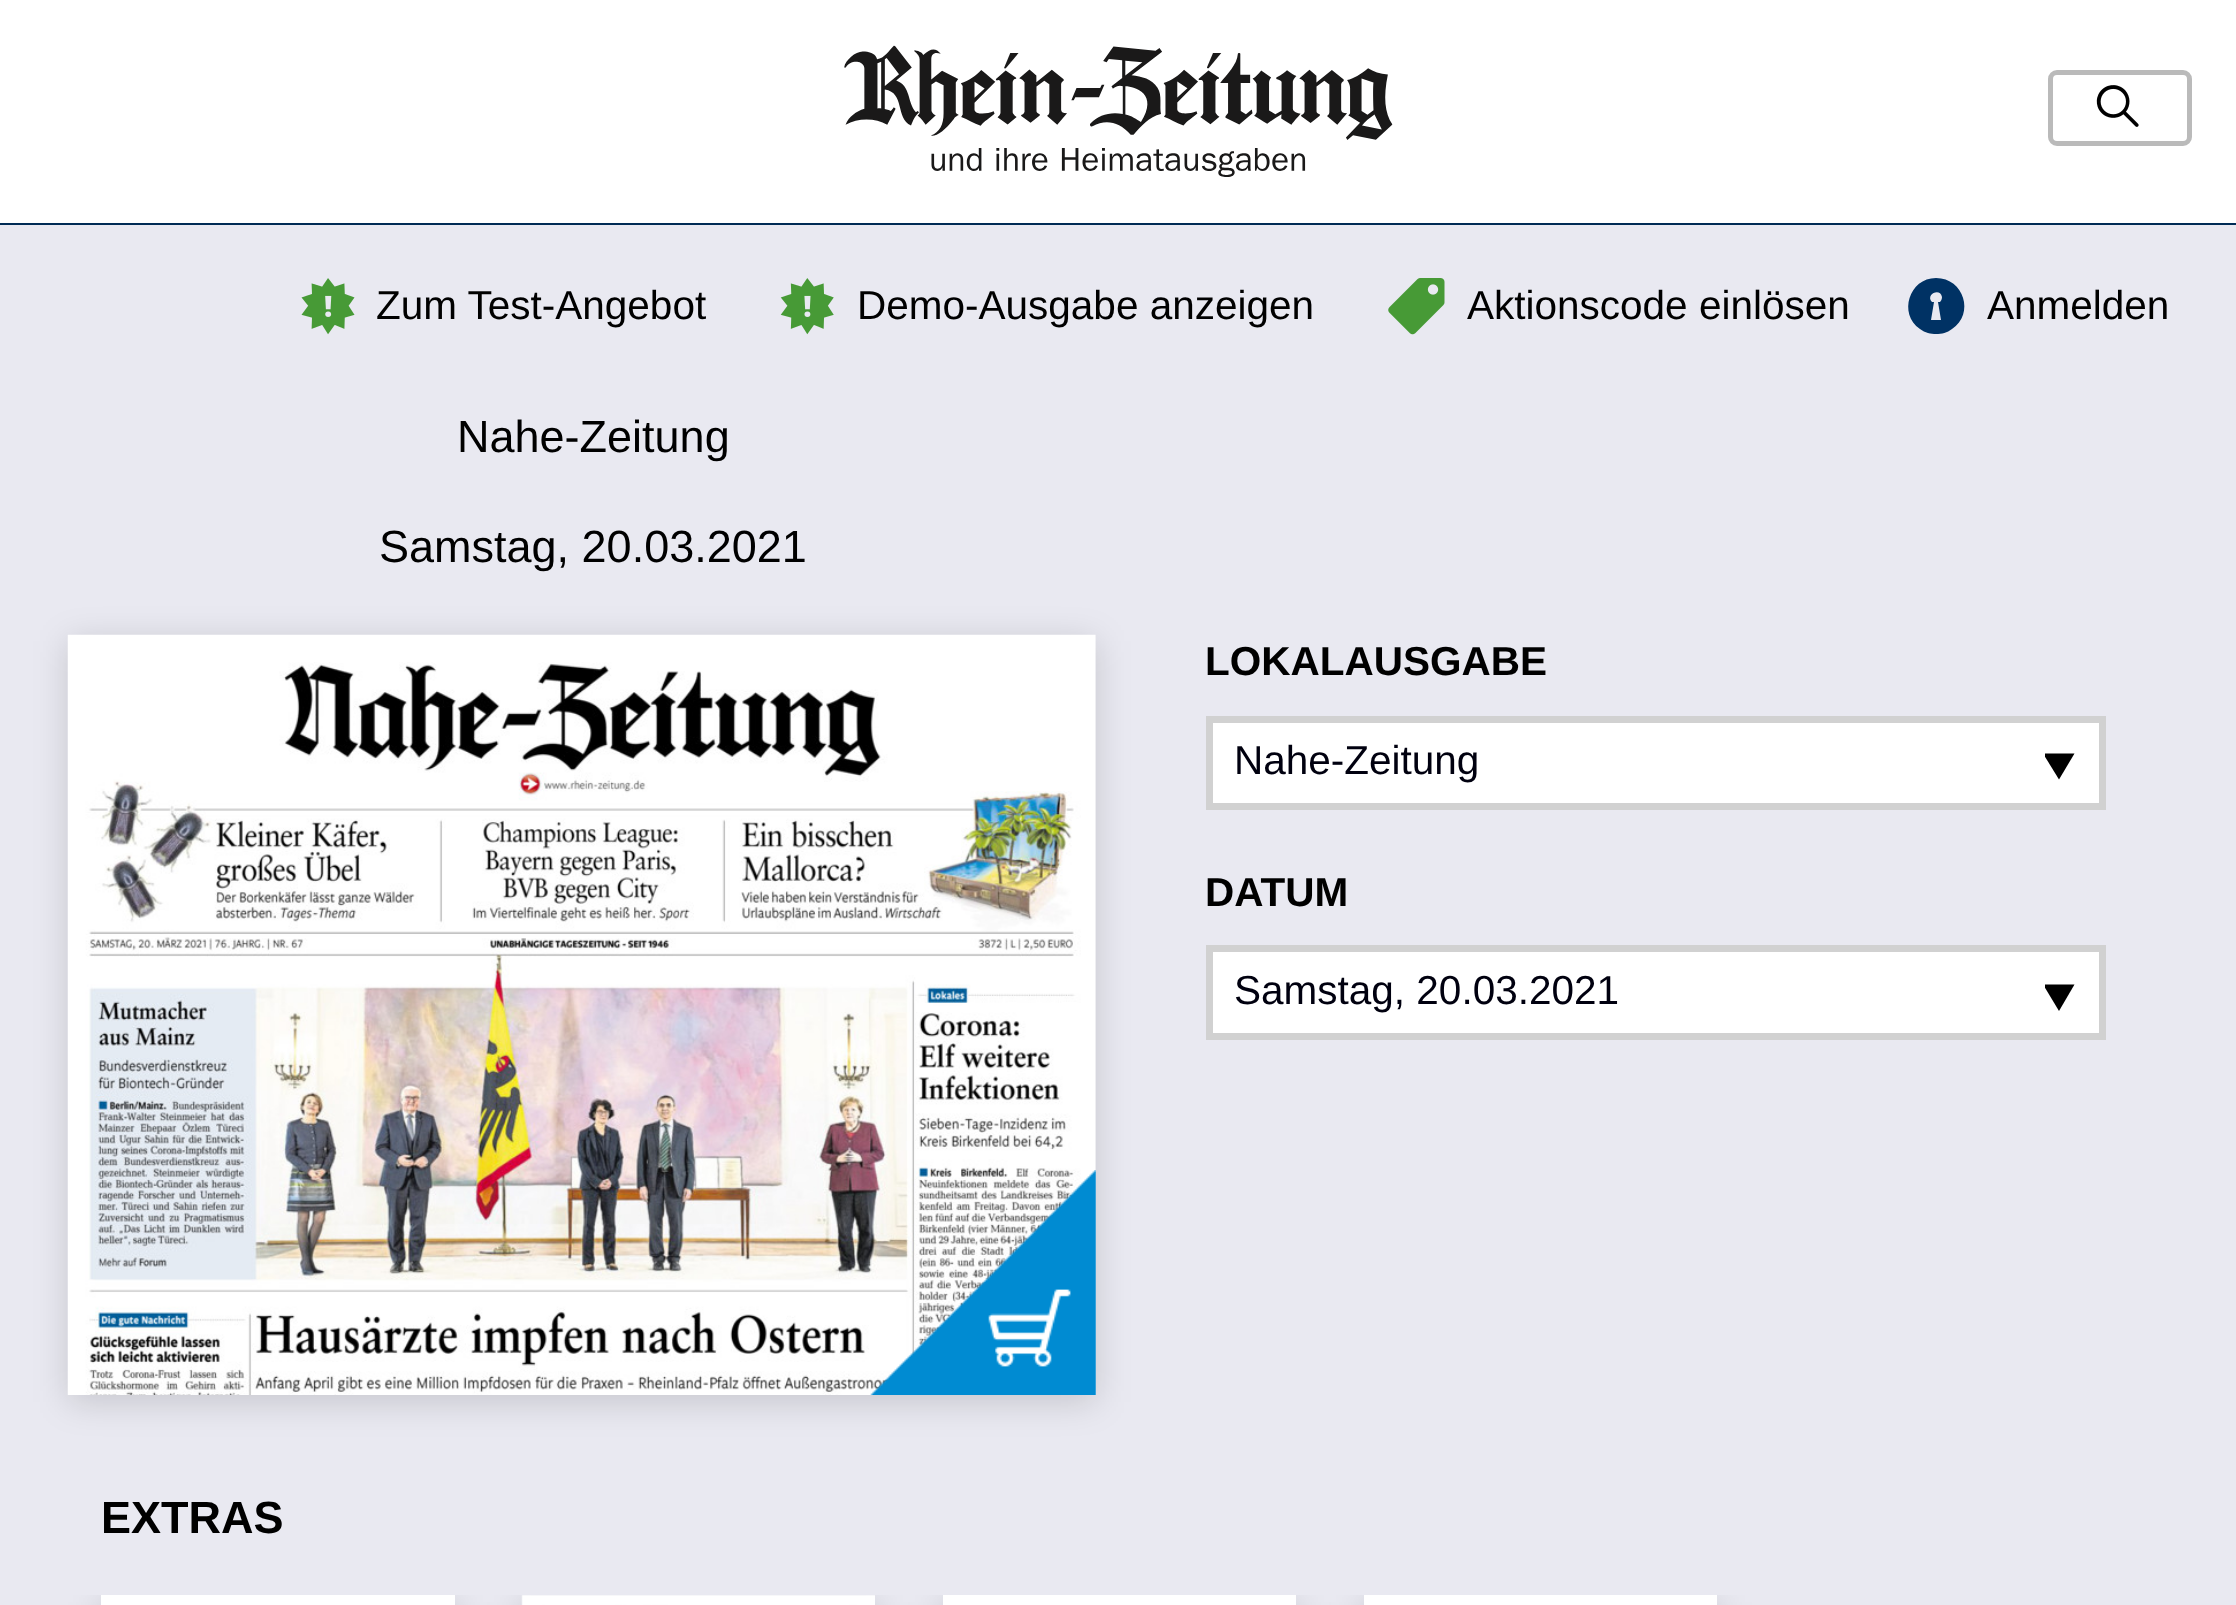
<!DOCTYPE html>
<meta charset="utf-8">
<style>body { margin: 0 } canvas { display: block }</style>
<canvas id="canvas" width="2236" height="1605"></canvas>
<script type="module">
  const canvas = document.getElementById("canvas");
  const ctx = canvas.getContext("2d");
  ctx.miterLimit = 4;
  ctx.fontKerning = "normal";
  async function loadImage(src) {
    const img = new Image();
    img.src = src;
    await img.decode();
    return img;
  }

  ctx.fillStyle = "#e9e9f1";
  ctx.fillRect(0, 0, 2236, 1605);
  ctx.fillStyle = "#ffffff";
  ctx.fillRect(0, 0, 2236, 223);
  ctx.fillStyle = "#002b55";
  ctx.fillRect(0, 223, 2236, 2);
  ctx.drawImage(await loadImage("img1.png"), 844, 45, 549, 132);
  ctx.beginPath();
  ctx.roundRect(2050.5, 72.5, 139, 71, 6.5);
  ctx.strokeStyle = "#bababa";
  ctx.lineWidth = 5;
  ctx.stroke();
  ctx.drawImage(await loadImage("img2.png"), 2096, 85, 43, 42);
  ctx.drawImage(await loadImage("img3.png"), 301, 278, 54, 57);
  ctx.font = "40.5px Liberation Sans";
  ctx.fillStyle = "#000000";
  ctx.fillText("Zum Test-Angebot", 376, 319);
  ctx.drawImage(await loadImage("img4.png"), 780, 278, 54, 57);
  ctx.fillText("Demo-Ausgabe anzeigen", 857, 319);
  ctx.drawImage(await loadImage("img5.png"), 1388, 278, 57, 57);
  ctx.fillText("Aktionscode einlösen", 1467, 319);
  ctx.fillStyle = "#003264";
  ctx.beginPath();
  ctx.moveTo(1936, 278);
  ctx.bezierCurveTo(1964, 278, 1975, 314, 1952, 329);
  ctx.bezierCurveTo(1947, 333, 1942, 334, 1936, 334);
  ctx.bezierCurveTo(1931, 334, 1925, 333, 1920, 329);
  ctx.bezierCurveTo(1898, 314, 1909, 278, 1936, 278);
  ctx.closePath();
  ctx.moveTo(1940, 302);
  ctx.bezierCurveTo(1941, 301, 1942, 299, 1942, 297);
  ctx.bezierCurveTo(1940, 287, 1925, 295, 1932, 302);
  ctx.lineTo(1934, 302);
  ctx.lineTo(1931, 320);
  ctx.lineTo(1941, 320);
  ctx.lineTo(1938, 302);
  ctx.closePath();
  ctx.fill();
  ctx.fillStyle = "#000000";
  ctx.fillText("Anmelden", 1987, 319);
  ctx.font = "45px Liberation Sans";
  ctx.fillText("Nahe-Zeitung", 457, 452);
  ctx.fillText("Samstag, 20.03.2021", 379, 562);
  ctx.fillStyle = "rgba(0, 0, 0, 0.15)";
  ctx.filter = "blur(17px)";
  ctx.beginPath();
  ctx.rect(68, 641, 1028, 761);
  ctx.fill();
  ctx.filter = "none";
  ctx.drawImage(await loadImage("img6.png"), 67, 634, 1029, 761);
  ctx.drawImage(await loadImage("img7.png"), 870, 1170, 226, 225);
  ctx.font = "bold 40.5px Liberation Sans";
  ctx.fillStyle = "#000000";
  ctx.fillText("LOKALAUSGABE", 1205, 675);
  ctx.fillStyle = "#ffffff";
  ctx.beginPath();
  ctx.rect(1209.5, 719.5, 893, 87);
  ctx.fill();
  ctx.strokeStyle = "#d1d1d1";
  ctx.lineWidth = 7;
  ctx.stroke();
  ctx.font = "40.5px Liberation Sans";
  ctx.fillStyle = "#00000f";
  ctx.fillText("Nahe-Zeitung", 1234, 774);
  ctx.save();
  ctx.beginPath();
  ctx.rect(2045, 740, 32, 54);
  ctx.clip();
  ctx.fillStyle = "#000000";
  ctx.beginPath();
  ctx.moveTo(2043, 753.5);
  ctx.lineTo(2074.5, 753.5);
  ctx.lineTo(2059, 779.5);
  ctx.closePath();
  ctx.fill();
  ctx.restore();
  ctx.font = "bold 40.5px Liberation Sans";
  ctx.fillStyle = "#000000";
  ctx.fillText("DATUM", 1205, 906);
  ctx.fillStyle = "#ffffff";
  ctx.beginPath();
  ctx.rect(1209.5, 948.5, 893, 88);
  ctx.fill();
  ctx.stroke();
  ctx.font = "40.5px Liberation Sans";
  ctx.fillStyle = "#00000f";
  ctx.fillText("Samstag, 20.03.2021", 1234, 1004);
  ctx.save();
  ctx.beginPath();
  ctx.rect(2045, 970, 32, 54);
  ctx.clip();
  ctx.fillStyle = "#000000";
  ctx.beginPath();
  ctx.moveTo(2043, 984.5);
  ctx.lineTo(2074.5, 984.5);
  ctx.lineTo(2059, 1011);
  ctx.closePath();
  ctx.fill();
  ctx.restore();
  ctx.font = "bold 45px Liberation Sans";
  ctx.fillStyle = "#000000";
  ctx.fillText("EXTRAS", 101, 1533);
  ctx.save();
  ctx.beginPath();
  ctx.rect(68, 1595, 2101, 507);
  ctx.clip();
  ctx.fillStyle = "rgba(0, 0, 0, 0.15)";
  ctx.filter = "blur(17px)";
  ctx.beginPath();
  ctx.rect(101, 1602, 354, 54);
  ctx.fill();
  ctx.filter = "none";
  ctx.restore();
  ctx.fillStyle = "#ffffff";
  ctx.fillRect(101, 1595, 354, 10);
  ctx.save();
  ctx.beginPath();
  ctx.rect(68, 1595, 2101, 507);
  ctx.clip();
  ctx.fillStyle = "rgba(0, 0, 0, 0.15)";
  ctx.filter = "blur(17px)";
  ctx.beginPath();
  ctx.rect(522, 1602, 353, 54);
  ctx.fill();
  ctx.filter = "none";
  ctx.restore();
  ctx.drawImage(await loadImage("img8.png"), 521, 1595, 354, 10);
  ctx.save();
  ctx.beginPath();
  ctx.rect(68, 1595, 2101, 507);
  ctx.clip();
  ctx.fillStyle = "rgba(0, 0, 0, 0.15)";
  ctx.filter = "blur(17px)";
  ctx.beginPath();
  ctx.rect(943, 1602, 353, 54);
  ctx.fill();
  ctx.filter = "none";
  ctx.restore();
  ctx.fillRect(943, 1595, 353, 10);
  ctx.save();
  ctx.beginPath();
  ctx.rect(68, 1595, 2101, 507);
  ctx.clip();
  ctx.fillStyle = "rgba(0, 0, 0, 0.15)";
  ctx.filter = "blur(17px)";
  ctx.beginPath();
  ctx.rect(1364, 1602, 353, 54);
  ctx.fill();
  ctx.filter = "none";
  ctx.restore();
  ctx.fillRect(1364, 1595, 353, 10);
</script>
